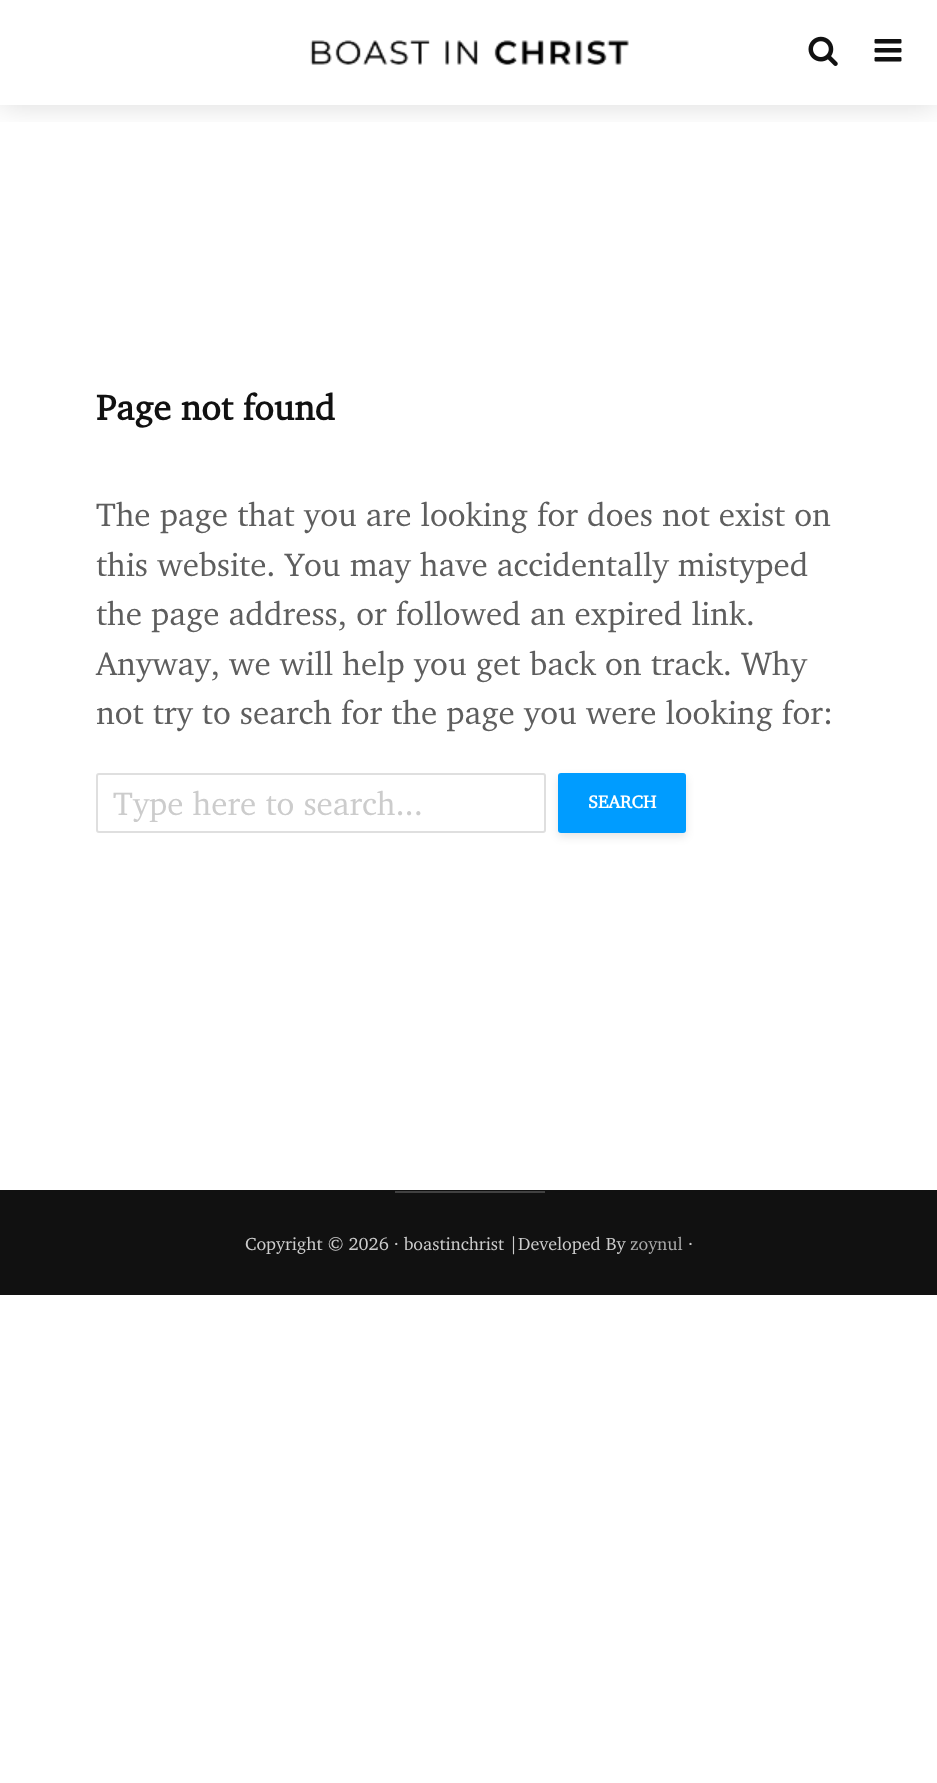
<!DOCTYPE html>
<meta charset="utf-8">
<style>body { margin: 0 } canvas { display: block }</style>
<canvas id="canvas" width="937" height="1783"></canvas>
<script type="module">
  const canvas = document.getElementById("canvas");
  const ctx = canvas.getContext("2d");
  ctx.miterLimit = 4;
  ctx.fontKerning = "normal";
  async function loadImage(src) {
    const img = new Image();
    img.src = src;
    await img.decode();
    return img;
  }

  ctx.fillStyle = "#ffffff";
  ctx.fillRect(0, 0, 937, 1783);
  ctx.save();
  ctx.beginPath();
  ctx.rect(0, 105, 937, 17);
  ctx.clip();
  ctx.fillStyle = "rgba(0, 0, 0, 0.15)";
  ctx.filter = "blur(15px)";
  ctx.beginPath();
  ctx.rect(0, 0, 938, 105);
  ctx.fill();
  ctx.filter = "none";
  ctx.restore();
  ctx.drawImage(await loadImage("img1.png"), 310, 40, 319, 25);
  ctx.drawImage(await loadImage("img2.png"), 808, 36, 30, 30);
  ctx.drawImage(await loadImage("img3.png"), 874, 39, 28, 23);
  ctx.font = "bold 36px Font";
  ctx.fillStyle = "#111111";
  ctx.fillText("Page not found", 96, 420);
  ctx.font = "33px Font";
  ctx.fillStyle = "#5e5e5e";
  ctx.fillText("The page that you are looking for does not exist on", 96, 526);
  ctx.fillText("this website. You may have accidentally mistyped", 96, 576);
  ctx.fillText("the page address, or followed an expired link.", 96, 625);
  ctx.fillText("Anyway, we will help you get back on track. Why", 96, 675);
  ctx.fillText("not try to search for the page you were looking for:", 96, 724);
  ctx.beginPath();
  ctx.roundRect(97, 774, 448, 58, 2);
  ctx.strokeStyle = "#dfdfdf";
  ctx.lineWidth = 2;
  ctx.stroke();
  ctx.save();
  ctx.beginPath();
  ctx.rect(113, 782, 417, 40);
  ctx.clip();
  ctx.fillStyle = "#cccccc";
  ctx.fillText("Type here to search...", 113, 815);
  ctx.restore();
  ctx.fillStyle = "rgba(0, 0, 0, 0.1)";
  ctx.filter = "blur(4px)";
  ctx.beginPath();
  ctx.roundRect(558, 777, 128, 60, 3);
  ctx.fill();
  ctx.filter = "none";
  ctx.fillStyle = "#009cff";
  ctx.beginPath();
  ctx.roundRect(558, 773, 128, 60, 3);
  ctx.fill();
  ctx.font = "bold 18px Font";
  ctx.fillStyle = "#ffffff";
  ctx.fillText("SEARCH", 588, 808);
  ctx.fillStyle = "#111111";
  ctx.fillRect(0, 1190, 937, 105);
  ctx.fillStyle = "#414141";
  ctx.fillRect(395, 1191, 150, 2);
  ctx.font = "18px Font";
  ctx.fillStyle = "#cccccc";
  ctx.fillText("Copyright © 2026 · boastinchrist |Developed By", 245, 1250);
  ctx.fillStyle = "#a9a9a9";
  ctx.fillText("zoynul", 630, 1250);
  ctx.fillStyle = "#cccccc";
  ctx.fillText("·", 688, 1250);
</script>
